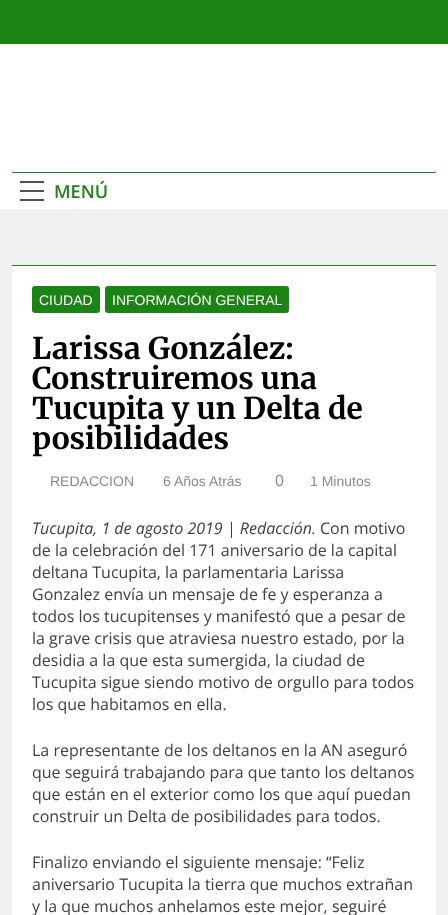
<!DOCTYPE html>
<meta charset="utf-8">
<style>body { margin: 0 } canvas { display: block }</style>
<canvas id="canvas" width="448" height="915"></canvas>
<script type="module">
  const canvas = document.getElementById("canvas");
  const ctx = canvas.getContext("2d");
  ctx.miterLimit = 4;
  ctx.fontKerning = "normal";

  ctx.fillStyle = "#f0f1f2";
  ctx.fillRect(0, 0, 448, 915);
  ctx.fillStyle = "#1b8415";
  ctx.fillRect(0, 0, 448, 44);
  ctx.fillStyle = "#ffffff";
  ctx.fillRect(0, 44, 448, 165);
  ctx.fillStyle = "#1b8415";
  ctx.fillRect(12, 172, 424, 1);
  ctx.fillStyle = "#525252";
  ctx.fillRect(20, 181, 24, 2);
  ctx.fillRect(20, 190, 24, 2);
  ctx.fillRect(20, 199, 24, 2);
  ctx.font = "600 18px Open Sans";
  ctx.fillStyle = "#1b8415";
  ctx.fillText("MENÚ", 54, 198);
  ctx.fillStyle = "#ffffff";
  ctx.fillRect(12, 266, 424, 649);
  ctx.fillStyle = "#1b8415";
  ctx.fillRect(12, 265, 424, 1);
  ctx.beginPath();
  ctx.roundRect(32, 286, 68, 27, 3);
  ctx.fill();
  ctx.font = "14px Liberation Sans";
  ctx.fillStyle = "#ffffff";
  ctx.fillText("CIUDAD", 39, 305);
  ctx.fillStyle = "#1b8415";
  ctx.beginPath();
  ctx.roundRect(105, 286, 184, 27, 3);
  ctx.fill();
  ctx.fillStyle = "#ffffff";
  ctx.fillText("INFORMACIÓN GENERAL", 112, 305);
  ctx.font = "bold 30px Merriweather";
  ctx.fillStyle = "#000000";
  ctx.fillText("Larissa González:", 32, 359);
  ctx.fillText("Construiremos una", 32, 389);
  ctx.fillText("Tucupita y un Delta de", 32, 419);
  ctx.fillText("posibilidades", 32, 449);
  ctx.font = "14px Liberation Sans";
  ctx.fillStyle = "#8a8a8c";
  ctx.fillText("REDACCION", 50, 486);
  ctx.fillText("6 Años Atrás", 163, 486);
  ctx.font = "16px Liberation Sans";
  ctx.fillText("0", 275, 486);
  ctx.font = "14px Liberation Sans";
  ctx.fillText("1 Minutos", 310, 486);
  ctx.font = "italic 16px Open Sans";
  ctx.fillStyle = "#404040";
  ctx.fillText("Tucupita, 1 de agosto 2019 | Redacción.", 32, 534);
  ctx.font = "16px Open Sans";
  ctx.fillText("Con motivo", 320, 534);
  ctx.fillText("de la celebración del 171 aniversario de la capital", 32, 556);
  ctx.fillText("deltana Tucupita, la parlamentaria Larissa", 32, 578);
  ctx.fillText("Gonzalez envía un mensaje de fe y esperanza a", 32, 600);
  ctx.fillText("todos los tucupitenses y manifestó que a pesar de", 32, 622);
  ctx.fillText("la grave crisis que atraviesa nuestro estado, por la", 32, 644);
  ctx.fillText("desidia a la que esta sumergida, la ciudad de", 32, 666);
  ctx.fillText("Tucupita sigue siendo motivo de orgullo para todos", 32, 688);
  ctx.fillText("los que habitamos en ella.", 32, 710);
  ctx.fillText("La representante de los deltanos en la AN aseguró", 32, 756);
  ctx.fillText("que seguirá trabajando para que tanto los deltanos", 32, 778);
  ctx.fillText("que están en el exterior como los que aquí puedan", 32, 800);
  ctx.fillText("construir un Delta de posibilidades para todos.", 32, 822);
  ctx.fillText("Finalizo enviando el siguiente mensaje: “Feliz", 32, 868);
  ctx.fillText("aniversario Tucupita la tierra que muchos extrañan", 32, 890);
  ctx.fillText("y la que muchos anhelamos este mejor, seguiré", 32, 912);
</script>
